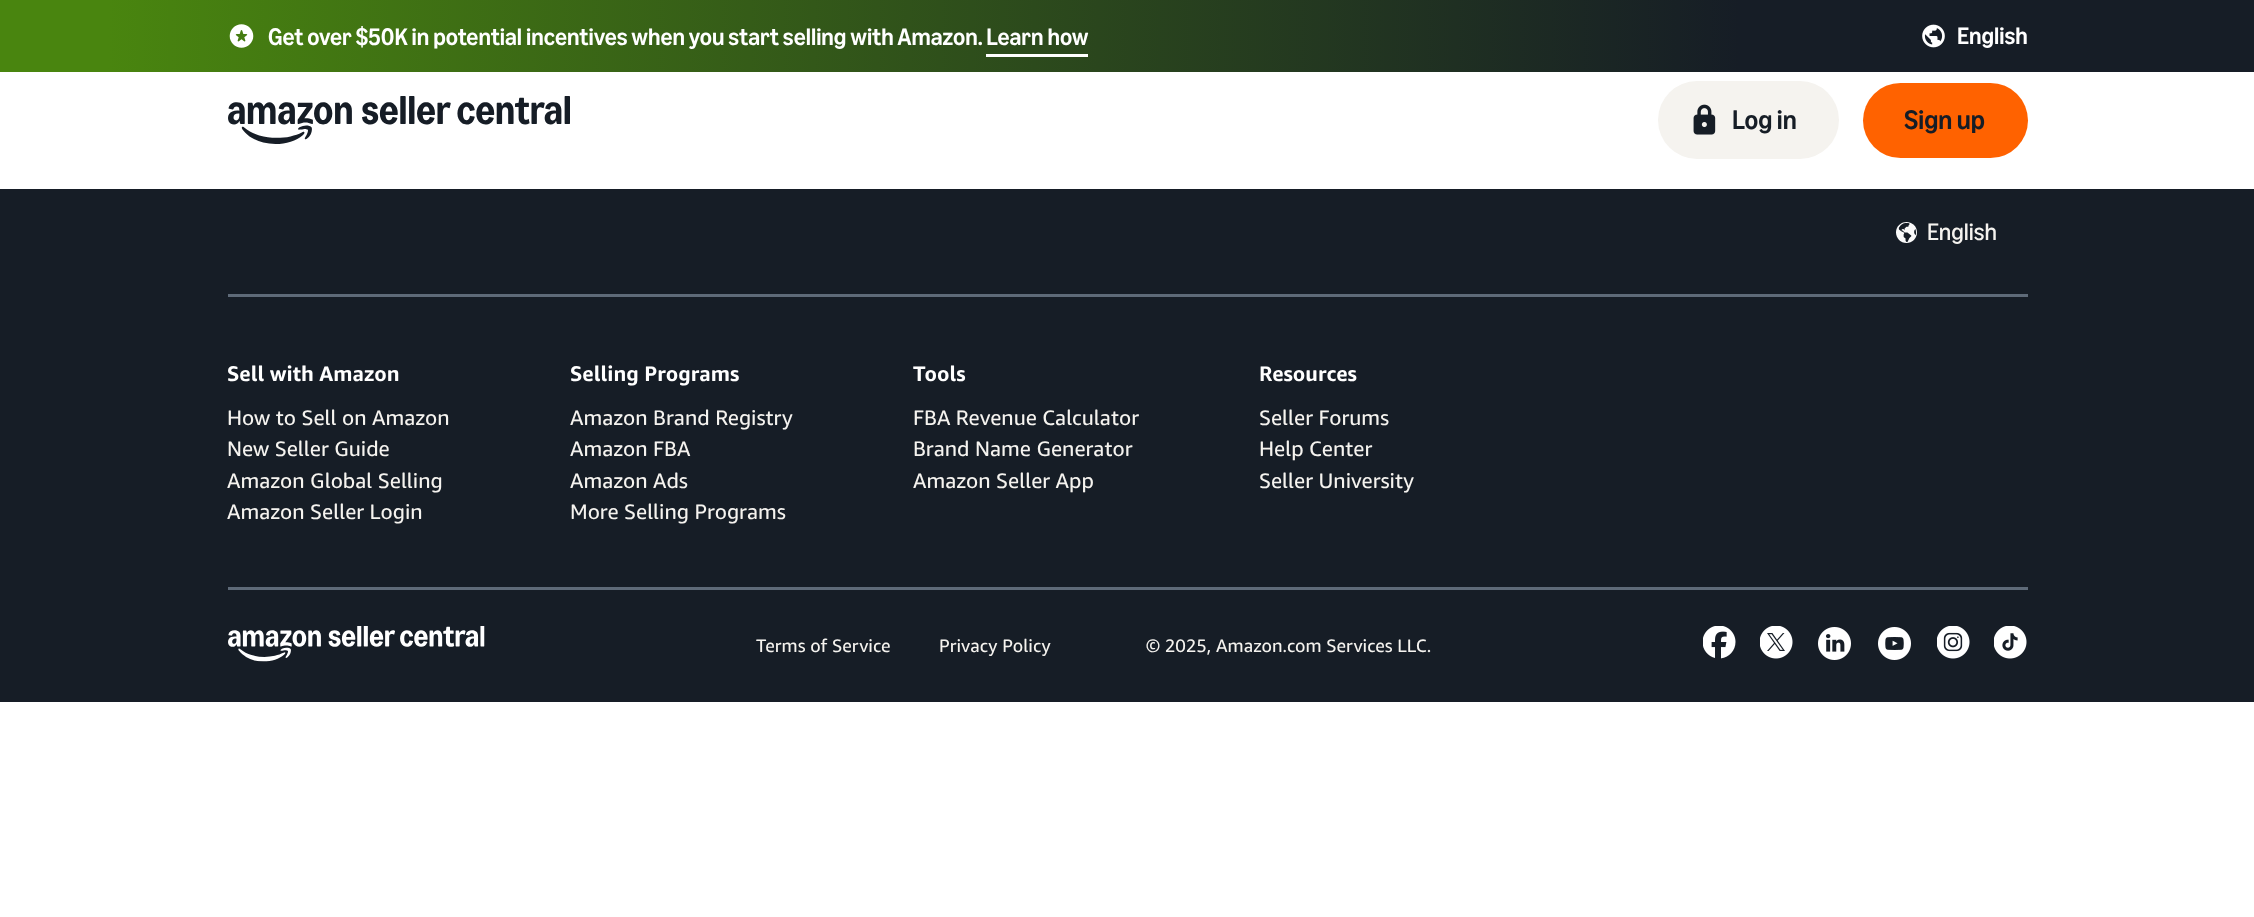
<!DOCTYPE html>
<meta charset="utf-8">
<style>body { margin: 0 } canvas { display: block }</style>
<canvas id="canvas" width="2254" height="917"></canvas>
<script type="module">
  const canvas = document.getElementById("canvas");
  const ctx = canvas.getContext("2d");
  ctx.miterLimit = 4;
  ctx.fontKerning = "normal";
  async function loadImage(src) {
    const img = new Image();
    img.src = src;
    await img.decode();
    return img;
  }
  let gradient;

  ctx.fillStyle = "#ffffff";
  ctx.fillRect(0, 0, 2254, 917);
  ctx.fillStyle = "#49850f";
  ctx.fillRect(0, 0, 108, 72);
  ctx.fillStyle = "#161d26";
  ctx.fillRect(2148, 0, 106, 72);
  gradient = ctx.createLinearGradient(108, 36, 2148, 36);
  gradient.addColorStop(0, "#49850f");
  gradient.addColorStop(0.8, "#161d26");
  ctx.fillStyle = gradient;
  ctx.fillRect(108, 0, 2040, 72);
  ctx.drawImage(await loadImage("img1.png"), 229, 24, 25, 24);
  ctx.font = "500 24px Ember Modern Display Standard";
  ctx.fillStyle = "#ffffff";
  ctx.fillText("Get over $50K in potential incentives when you start selling with Amazon. Learn how", 268, 45);
  ctx.fillRect(986, 54, 102, 3);
  ctx.drawImage(await loadImage("img2.png"), 1922, 24, 23, 24);
  ctx.fillText("English", 1957, 44);
  ctx.drawImage(await loadImage("img3.png"), 228, 96, 342, 48);
  ctx.fillStyle = "#f5f3ef";
  ctx.beginPath();
  ctx.roundRect(1658, 81, 181, 78, 39);
  ctx.fill();
  ctx.drawImage(await loadImage("img4.png"), 1693, 104, 23, 31);
  ctx.font = "500 27px Ember Modern Display Standard";
  ctx.fillStyle = "#161d26";
  ctx.fillText("Log in", 1732, 129);
  ctx.fillStyle = "#ff6200";
  ctx.beginPath();
  ctx.roundRect(1863, 83, 165, 75, 37.5);
  ctx.fill();
  ctx.fillStyle = "#161d26";
  ctx.fillText("Sign up", 1904, 129);
  ctx.fillRect(0, 189, 2254, 513);
  ctx.drawImage(await loadImage("img5.png"), 1896, 222, 21, 21);
  ctx.font = "24px Ember Modern Display Standard";
  ctx.fillStyle = "#f5f3ef";
  ctx.fillText("English", 1927, 240);
  ctx.fillStyle = "#5e6a78";
  ctx.fillRect(228, 294, 1800, 3);
  ctx.fillRect(228, 587, 1800, 3);
  ctx.font = "bold 21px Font";
  ctx.fillStyle = "#ffffff";
  ctx.fillText("Sell with Amazon", 227, 381);
  ctx.font = "21px Font";
  ctx.fillStyle = "#f5f3ef";
  ctx.fillText("How to Sell on Amazon", 227, 425);
  ctx.fillText("New Seller Guide", 227, 456);
  ctx.fillText("Amazon Global Selling", 227, 488);
  ctx.fillText("Amazon Seller Login", 227, 519);
  ctx.font = "bold 21px Font";
  ctx.fillStyle = "#ffffff";
  ctx.fillText("Selling Programs", 570, 381);
  ctx.font = "21px Font";
  ctx.fillStyle = "#f5f3ef";
  ctx.fillText("Amazon Brand Registry", 570, 425);
  ctx.fillText("Amazon FBA", 570, 456);
  ctx.fillText("Amazon Ads", 570, 488);
  ctx.fillText("More Selling Programs", 570, 519);
  ctx.font = "bold 21px Font";
  ctx.fillStyle = "#ffffff";
  ctx.fillText("Tools", 913, 381);
  ctx.font = "21px Font";
  ctx.fillStyle = "#f5f3ef";
  ctx.fillText("FBA Revenue Calculator", 913, 425);
  ctx.fillText("Brand Name Generator", 913, 456);
  ctx.fillText("Amazon Seller App", 913, 488);
  ctx.font = "bold 21px Font";
  ctx.fillStyle = "#ffffff";
  ctx.fillText("Resources", 1259, 381);
  ctx.font = "21px Font";
  ctx.fillStyle = "#f5f3ef";
  ctx.fillText("Seller Forums", 1259, 425);
  ctx.fillText("Help Center", 1259, 456);
  ctx.fillText("Seller University", 1259, 488);
  ctx.drawImage(await loadImage("img6.png"), 228, 626, 257, 36);
  ctx.font = "18px Font";
  ctx.fillText("Terms of Service", 756, 652);
  ctx.fillText("Privacy Policy", 939, 652);
  ctx.fillText("© 2025, Amazon.com Services LLC.", 1146, 652);
  ctx.drawImage(await loadImage("img7.png"), 1703, 626, 33, 33);
  ctx.drawImage(await loadImage("img8.png"), 1760, 626, 33, 33);
  ctx.drawImage(await loadImage("img9.png"), 1818, 627, 33, 33);
  ctx.drawImage(await loadImage("img10.png"), 1878, 627, 33, 33);
  ctx.drawImage(await loadImage("img11.png"), 1937, 626, 33, 33);
  ctx.drawImage(await loadImage("img12.png"), 1994, 626, 33, 33);
</script>
